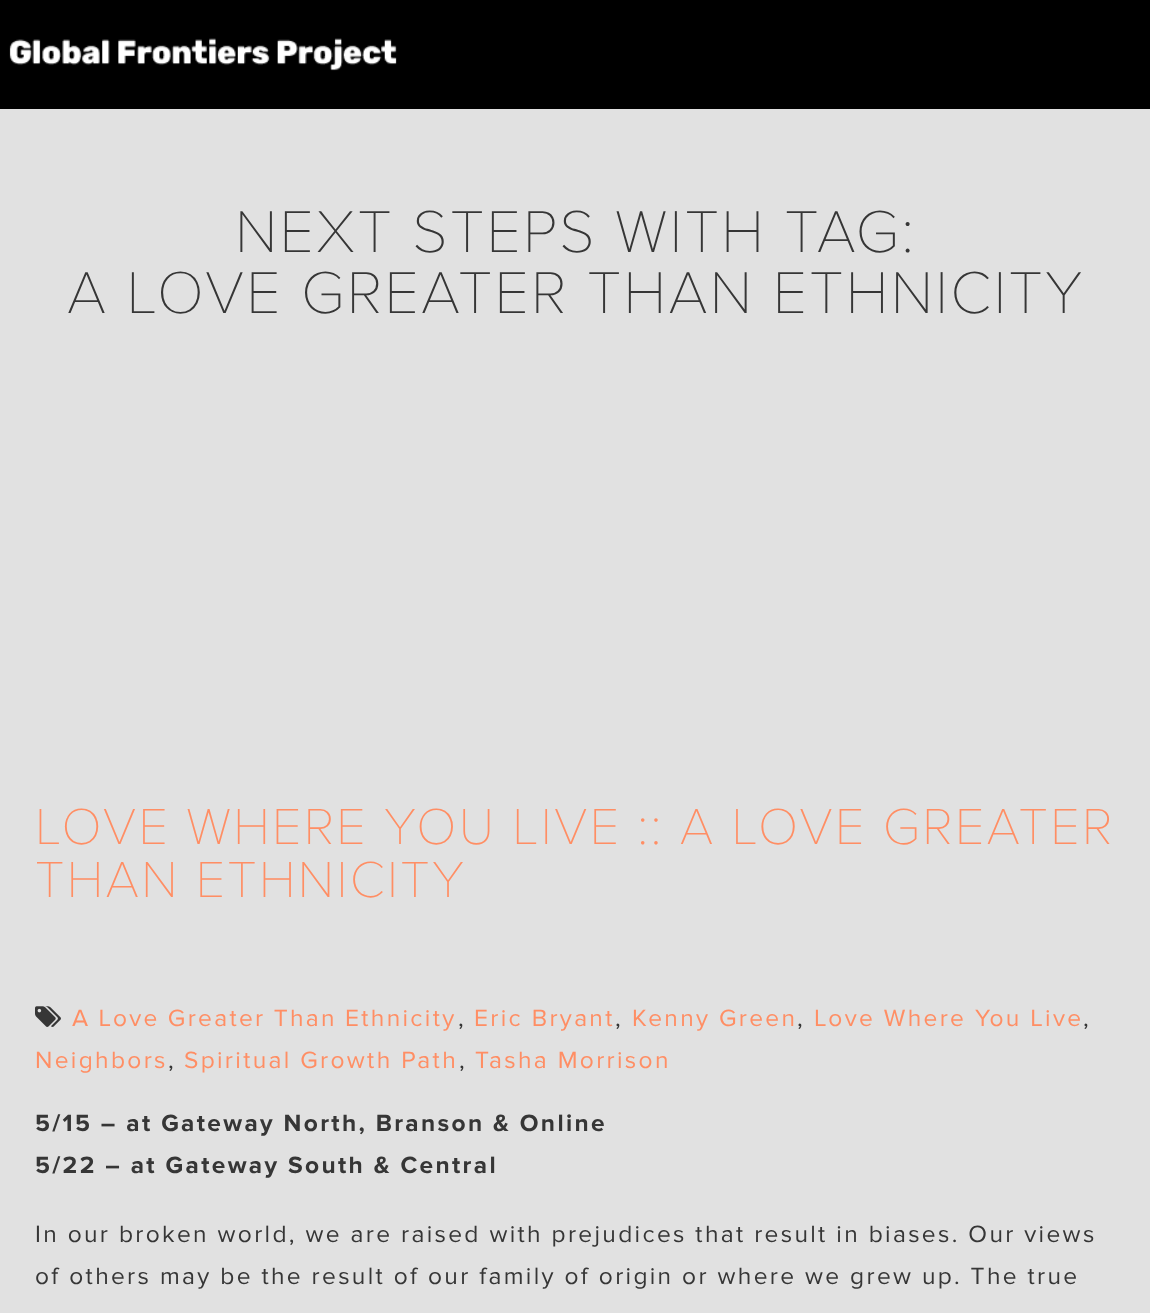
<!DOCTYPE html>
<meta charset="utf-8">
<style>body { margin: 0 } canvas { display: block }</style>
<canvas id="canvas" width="1150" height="1313"></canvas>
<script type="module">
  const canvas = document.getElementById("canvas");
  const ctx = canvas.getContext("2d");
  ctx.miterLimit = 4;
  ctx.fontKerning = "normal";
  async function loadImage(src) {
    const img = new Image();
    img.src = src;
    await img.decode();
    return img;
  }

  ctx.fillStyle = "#e1e1e1";
  ctx.fillRect(0, 0, 1150, 1313);
  ctx.fillStyle = "#000000";
  ctx.fillRect(0, 0, 1150, 109);
  ctx.drawImage(await loadImage("img1.png"), 9, 38, 388, 33);
  ctx.letterSpacing = "2.33px";
  ctx.font = "100 61.25px Proxima Nova";
  ctx.fillStyle = "#363636";
  ctx.fillText("NEXT STEPS WITH TAG:", 235, 252);
  ctx.fillText("A LOVE GREATER THAN ETHNICITY", 67, 313);
  ctx.font = "100 52.5px Proxima Nova";
  ctx.fillStyle = "#ff8e64";
  ctx.fillText("LOVE WHERE YOU LIVE :: A LOVE GREATER", 35, 844);
  ctx.fillText("THAN ETHNICITY", 35, 897);
  ctx.drawImage(await loadImage("img2.png"), 35, 1006, 26, 21);
  ctx.wordSpacing = "-0.5px";
  ctx.font = "24.5px Proxima Nova";
  ctx.fillText("A Love Greater Than Ethnicity", 72, 1026);
  ctx.wordSpacing = "0px";
  ctx.fillStyle = "#363636";
  ctx.fillText(",", 458, 1026);
  ctx.fillStyle = "#ff8e64";
  ctx.fillText("Eric Bryant", 474, 1026);
  ctx.fillStyle = "#363636";
  ctx.fillText(",", 615, 1026);
  ctx.fillStyle = "#ff8e64";
  ctx.fillText("Kenny Green", 632, 1026);
  ctx.fillStyle = "#363636";
  ctx.fillText(",", 797, 1026);
  ctx.fillStyle = "#ff8e64";
  ctx.fillText("Love Where You Live", 814, 1026);
  ctx.fillStyle = "#363636";
  ctx.fillText(",", 1083, 1026);
  ctx.fillStyle = "#ff8e64";
  ctx.fillText("Neighbors", 35, 1068);
  ctx.fillStyle = "#363636";
  ctx.fillText(",", 168, 1068);
  ctx.fillStyle = "#ff8e64";
  ctx.fillText("Spiritual Growth Path", 184, 1068);
  ctx.fillStyle = "#363636";
  ctx.fillText(",", 459, 1068);
  ctx.fillStyle = "#ff8e64";
  ctx.fillText("Tasha Morrison", 475, 1068);
  ctx.font = "bold 24.5px Proxima Nova";
  ctx.fillStyle = "#363636";
  ctx.fillText("5/15 – at Gateway North, Branson & Online", 35, 1131);
  ctx.fillText("5/22 – at Gateway South & Central", 35, 1173);
  ctx.font = "24.5px Proxima Nova";
  ctx.fillText("In our broken world, we are raised with prejudices that result in biases. Our views", 35, 1242);
  ctx.fillText("of others may be the result of our family of origin or where we grew up. The true", 35, 1284);
</script>
